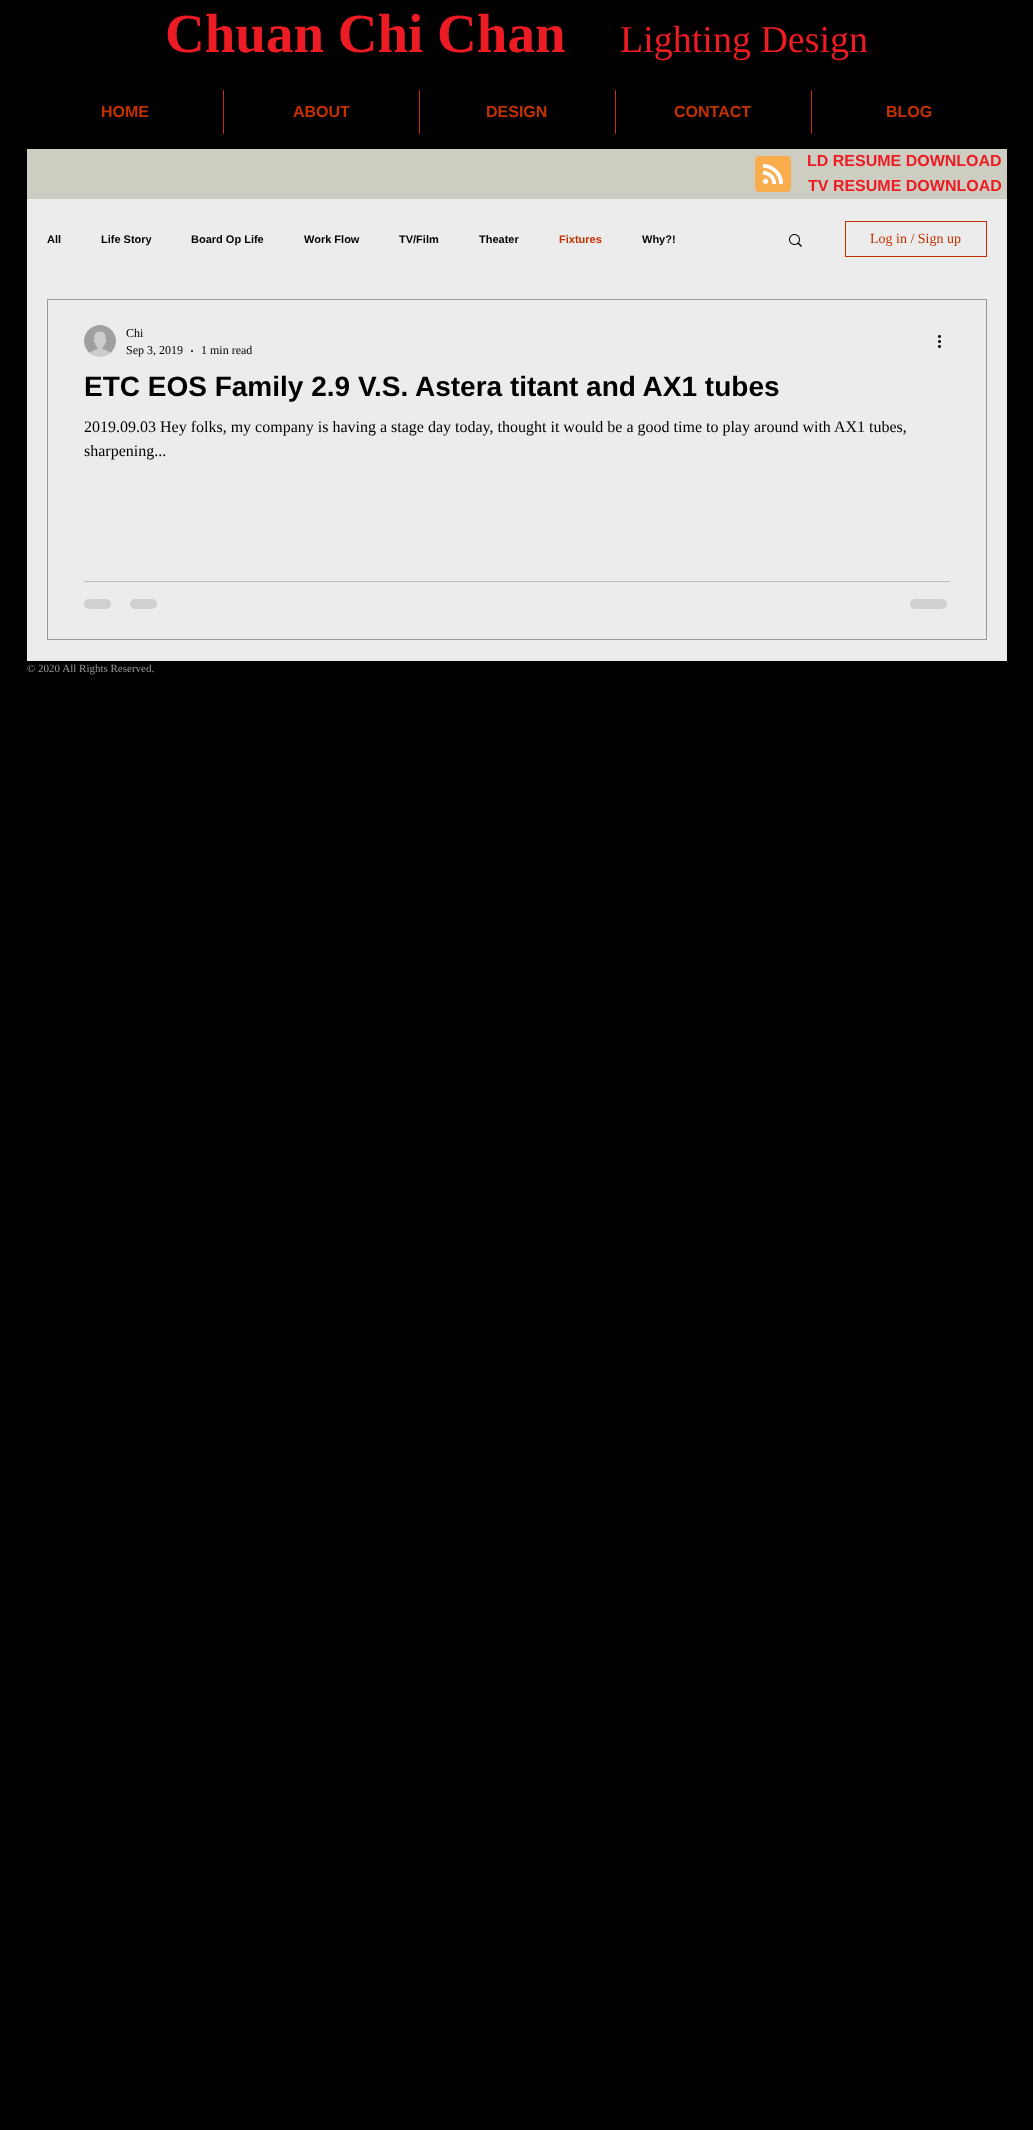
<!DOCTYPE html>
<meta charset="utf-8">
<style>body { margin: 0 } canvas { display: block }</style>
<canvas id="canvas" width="1033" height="2130"></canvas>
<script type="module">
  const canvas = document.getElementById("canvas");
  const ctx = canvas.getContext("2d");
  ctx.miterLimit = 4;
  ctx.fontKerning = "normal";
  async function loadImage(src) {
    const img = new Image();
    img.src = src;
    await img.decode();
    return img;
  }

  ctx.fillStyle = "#000000";
  ctx.fillRect(0, 0, 1033, 2130);
  ctx.font = "bold 55px Liberation Serif";
  ctx.fillStyle = "#ed1c24";
  ctx.fillText("Chuan Chi Chan", 165, 52);
  ctx.font = "38px Liberation Serif";
  ctx.fillText("Lighting Design", 620, 52);
  ctx.font = "bold 16px Liberation Sans";
  ctx.fillStyle = "#c43100";
  ctx.fillText("HOME", 101, 117);
  ctx.fillRect(223, 90, 1, 44);
  ctx.fillText("ABOUT", 293, 117);
  ctx.fillRect(419, 90, 1, 44);
  ctx.fillText("DESIGN", 486, 117);
  ctx.fillRect(615, 90, 1, 44);
  ctx.fillText("CONTACT", 674, 117);
  ctx.fillRect(811, 90, 1, 44);
  ctx.fillText("BLOG", 886, 117);
  ctx.fillStyle = "#cdcec1";
  ctx.fillRect(27, 149, 980, 50);
  ctx.drawImage(await loadImage("img1.png"), 755, 156, 36, 36);
  ctx.fillStyle = "#ed1c24";
  ctx.fillText("LD RESUME DOWNLOAD", 807, 166);
  ctx.fillText("TV RESUME DOWNLOAD", 808, 191);
  ctx.fillStyle = "#ececec";
  ctx.fillRect(27, 199, 980, 462);
  ctx.font = "bold 11px Liberation Sans";
  ctx.fillStyle = "#000000";
  ctx.fillText("All", 47, 243);
  ctx.fillText("Life Story", 101, 243);
  ctx.fillText("Board Op Life", 191, 243);
  ctx.fillText("Work Flow", 304, 243);
  ctx.fillText("TV/Film", 399, 243);
  ctx.fillText("Theater", 479, 243);
  ctx.fillStyle = "#c43100";
  ctx.fillText("Fixtures", 559, 243);
  ctx.fillStyle = "#000000";
  ctx.fillText("Why?!", 642, 243);
  ctx.drawImage(await loadImage("img2.png"), 789, 234, 13, 13);
  ctx.strokeStyle = "#c43100";
  ctx.strokeRect(845.5, 221.5, 141, 35);
  ctx.font = "14px Liberation Serif";
  ctx.fillStyle = "#c43100";
  ctx.fillText("Log in / Sign up", 870, 243);
  ctx.strokeStyle = "#999999";
  ctx.strokeRect(47.5, 299.5, 939, 340);
  ctx.drawImage(await loadImage("img3.png"), 84, 325, 32, 32);
  ctx.font = "12px Liberation Serif";
  ctx.fillStyle = "#000000";
  ctx.fillText("Chi", 126, 337);
  ctx.fillText("Sep 3, 2019", 126, 354);
  ctx.beginPath();
  ctx.arc(192, 351, 1, 0, Math.PI * 2);
  ctx.fill();
  ctx.fillText("1 min read", 201, 354);
  ctx.drawImage(await loadImage("img4.png"), 938, 335, 3, 13);
  ctx.font = "bold 28px Liberation Sans";
  ctx.fillText("ETC EOS Family 2.9 V.S. Astera titant and AX1 tubes", 84, 396);
  ctx.font = "16px Liberation Serif";
  ctx.fillText("2019.09.03 Hey folks, my company is having a stage day today, thought it would be a good time to play around with AX1 tubes,", 84, 432);
  ctx.fillText("sharpening...", 84, 456);
  ctx.fillStyle = "#bdbdbd";
  ctx.fillRect(84, 581, 866, 1);
  ctx.fillStyle = "#d0d0d0";
  ctx.beginPath();
  ctx.roundRect(84, 599, 27, 10, 5);
  ctx.fill();
  ctx.beginPath();
  ctx.roundRect(130, 599, 27, 10, 5);
  ctx.fill();
  ctx.beginPath();
  ctx.roundRect(910, 599, 37, 10, 5);
  ctx.fill();
  ctx.font = "11px Liberation Serif";
  ctx.fillStyle = "#999999";
  ctx.fillText("© 2020 All Rights Reserved.", 27, 672);
</script>
